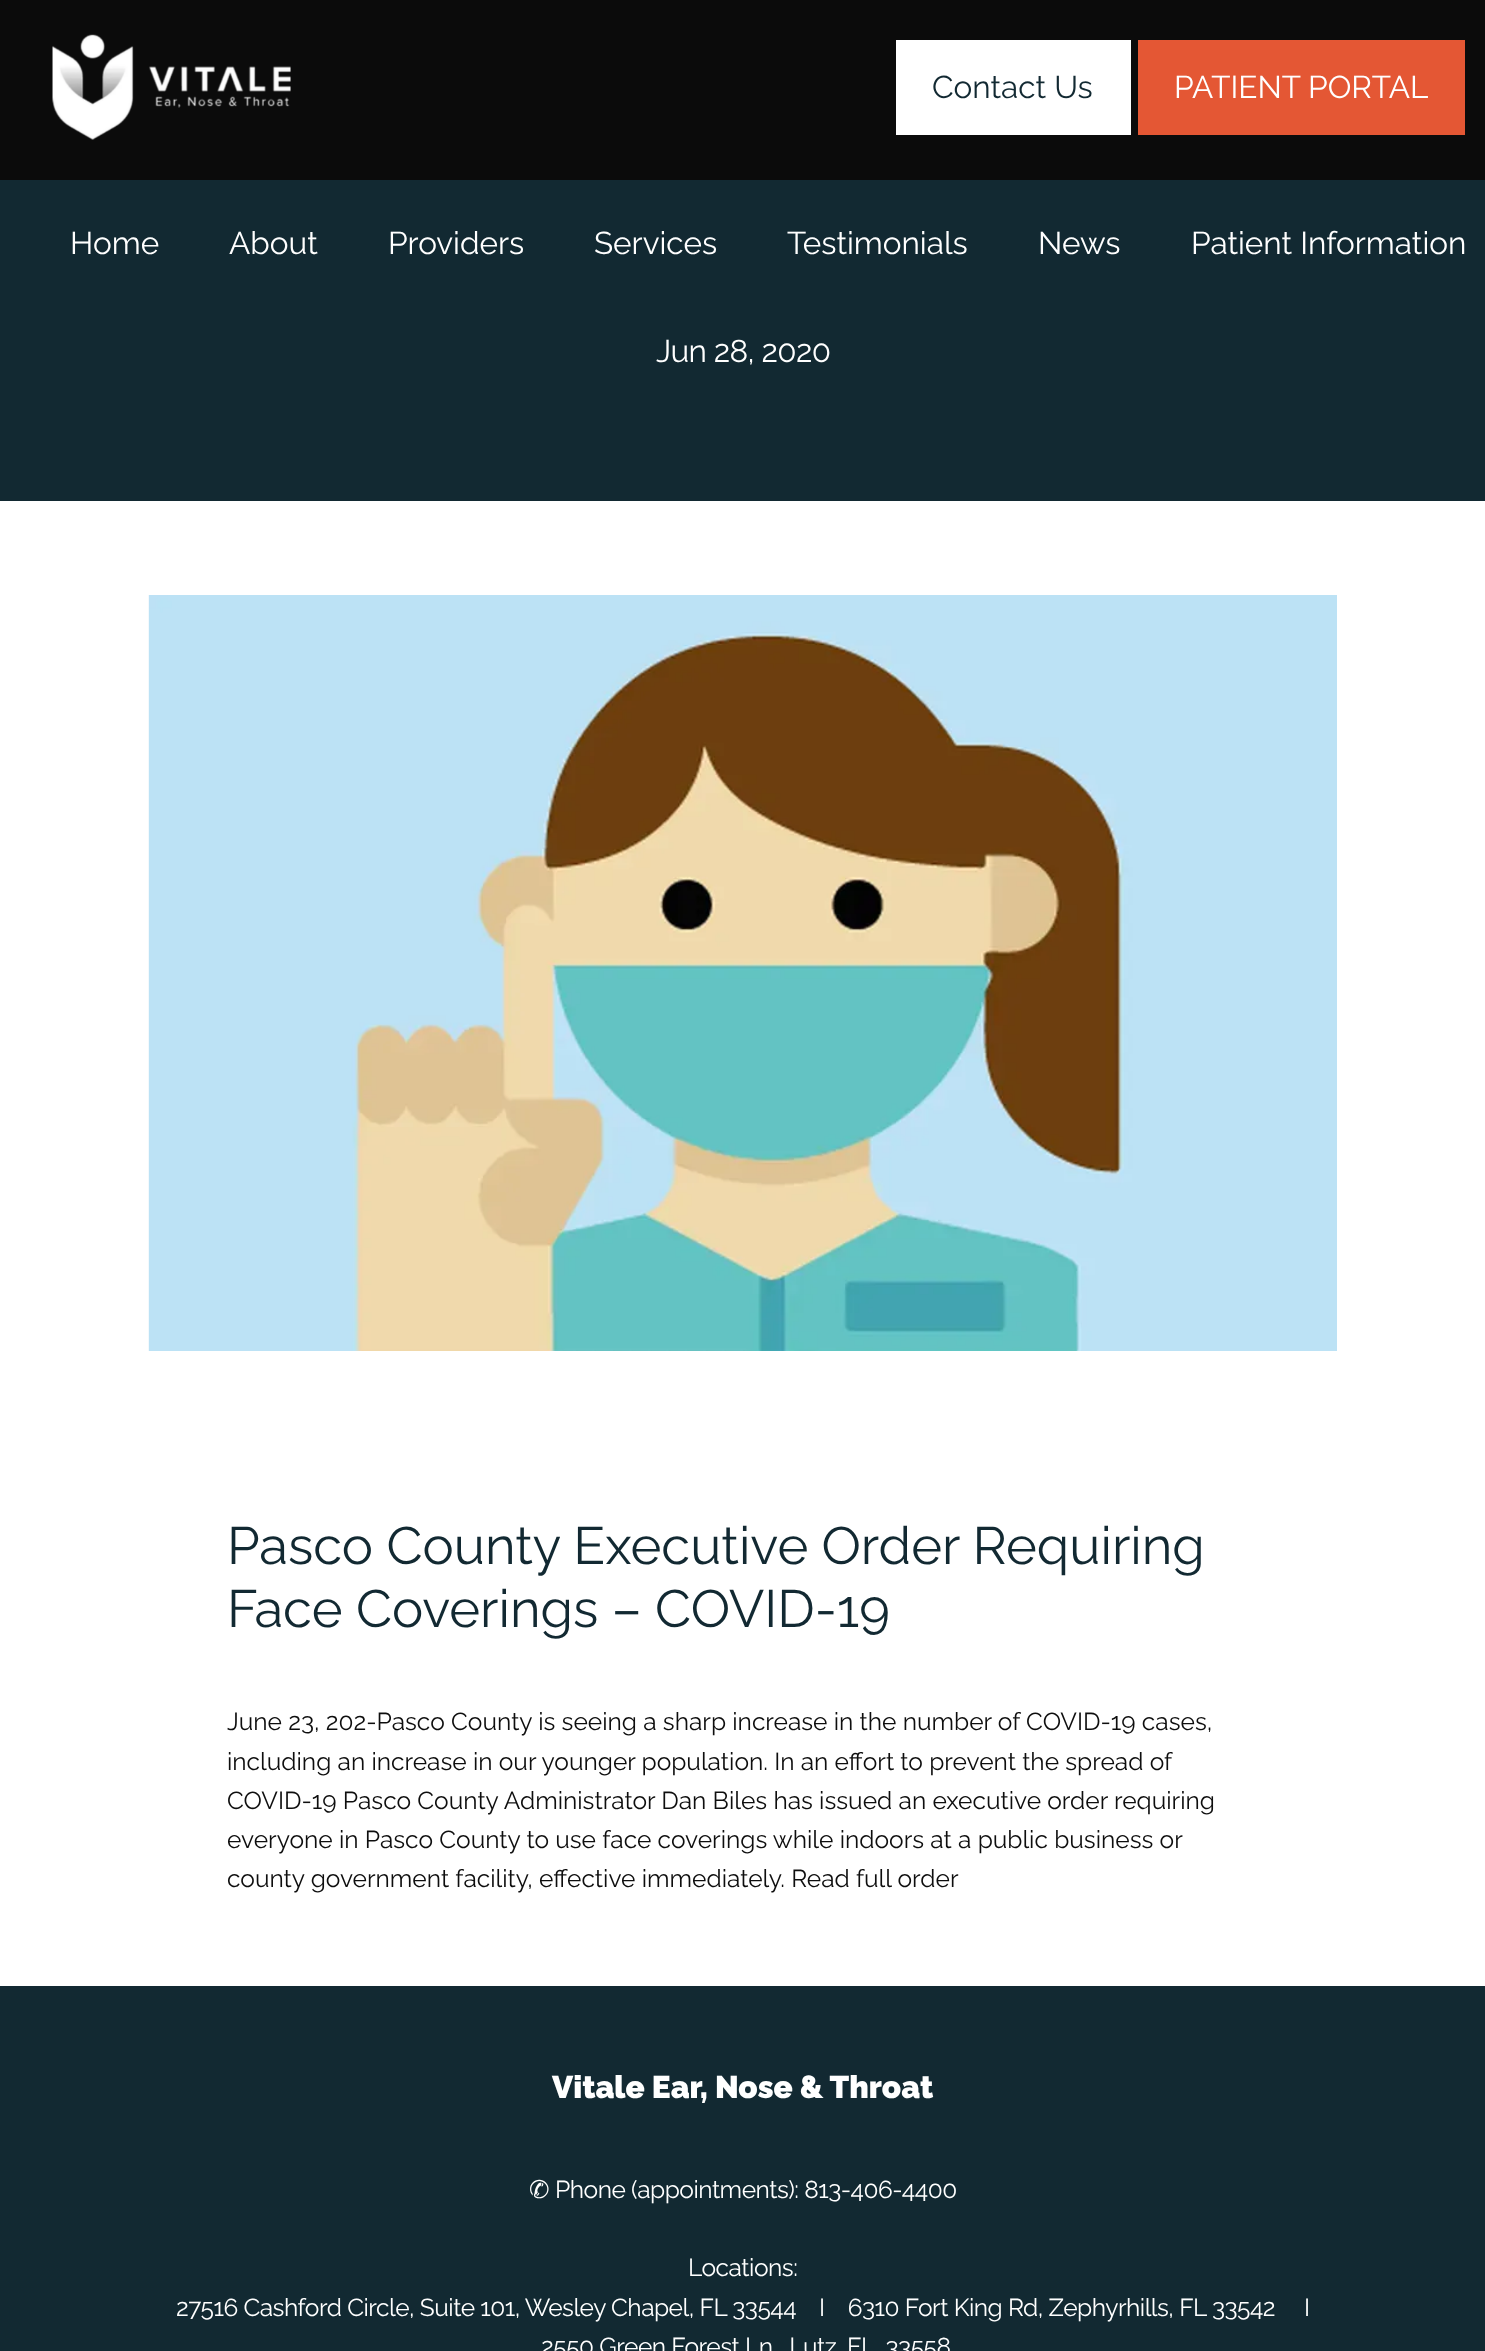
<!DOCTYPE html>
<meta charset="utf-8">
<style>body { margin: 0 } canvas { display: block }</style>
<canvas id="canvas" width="1485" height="2351"></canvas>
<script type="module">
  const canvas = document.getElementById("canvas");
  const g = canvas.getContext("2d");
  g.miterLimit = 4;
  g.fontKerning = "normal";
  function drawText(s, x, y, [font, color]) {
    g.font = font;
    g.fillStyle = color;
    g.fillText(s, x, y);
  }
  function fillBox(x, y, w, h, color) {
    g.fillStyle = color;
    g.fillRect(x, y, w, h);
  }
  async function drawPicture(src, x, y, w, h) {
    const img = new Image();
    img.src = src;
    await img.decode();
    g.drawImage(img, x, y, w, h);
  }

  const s1 = ["100 31.5px 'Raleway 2'", "#122932"];
  const s2 = ["100 31.5px 'Raleway 2'", "#FFFFFF"];
  const s3 = ["100 52.5px 'Raleway 2'", "#122932"];
  const s4 = ["100 24.5px 'Raleway 2'", "#0E0E0E"];
  const s5 = ["100 31.5px Raleway", "#FFFFFF"];
  const s6 = ["24.5px DejaVu Sans", "#FFFFFF"];
  const s7 = ["100 24.5px 'Raleway 2'", "#FFFFFF"];

  fillBox(0, 0, 1485, 2351, "#FFFFFF");
  fillBox(0, 0, 1485, 180, "#0B0B0B");
  await drawPicture("pic1.png", 52, 34, 239, 106);
  fillBox(896, 40, 235, 95, "#FFFFFF");
  drawText("Contact Us", 932, 98, s1);
  fillBox(1138, 40, 327, 95, "#E45734");
  drawText("PATIENT PORTAL", 1174, 98, s2);
  fillBox(0, 180, 1485, 321, "#122932");
  drawText("Home", 70, 254, s2);
  drawText("About", 229, 254, s2);
  drawText("Providers", 388, 254, s2);
  drawText("Services", 594, 254, s2);
  drawText("Testimonials", 787, 254, s2);
  drawText("News", 1038, 254, s2);
  drawText("Patient Information", 1191, 254, s2);
  g.letterSpacing = "-0.6px";
  drawText("Jun 28, 2020", 656, 362, s2);
  await drawPicture("pic2.png", 148, 595, 1189, 756);
  g.letterSpacing = "0px";
  drawText("Pasco County Executive Order Requiring", 227, 1564, s3);
  drawText("Face Coverings – COVID-19", 227, 1627, s3);
  drawText("June 23, 202-Pasco County is seeing a sharp increase in the number of COVID-19 cases,", 227, 1730, s4);
  drawText("including an increase in our younger population. In an effort to prevent the spread of", 227, 1770, s4);
  drawText("COVID-19 Pasco County Administrator Dan Biles has issued an executive order requiring", 227, 1809, s4);
  drawText("everyone in Pasco County to use face coverings while indoors at a public business or", 227, 1848, s4);
  drawText("county government facility, effective immediately. Read full order", 227, 1887, s4);
  fillBox(0, 1986, 1485, 365, "#122932");
  drawText("Vitale Ear, Nose & Throat", 552, 2098, s5);
  g.letterSpacing = "-0.49px";
  drawText("✆", 529, 2198, s6);
  drawText("Phone (appointments): 813-406-4400", 555, 2198, s7);
  drawText("Locations:", 688, 2276, s7);
  drawText("27516 Cashford Circle, Suite 101, Wesley Chapel, FL 33544    I    6310 Fort King Rd, Zephyrhills, FL 33542     I", 176, 2316, s7);
  drawText("2550 Green Forest Ln,  Lutz, FL, 33558", 541, 2355, s7);
</script>
